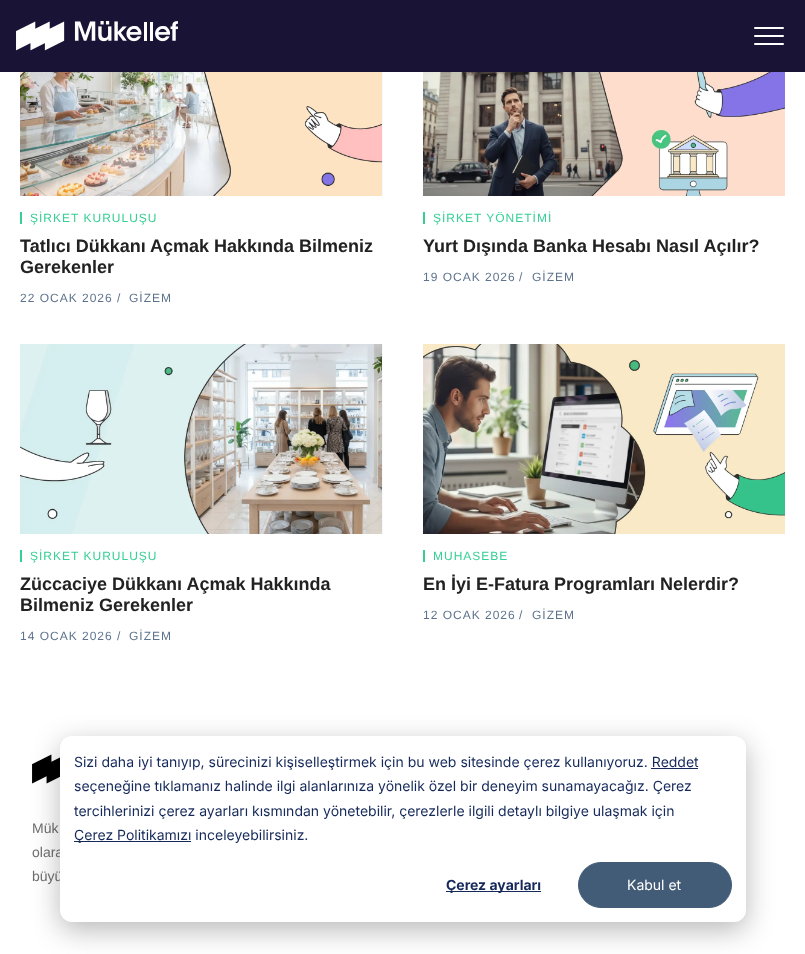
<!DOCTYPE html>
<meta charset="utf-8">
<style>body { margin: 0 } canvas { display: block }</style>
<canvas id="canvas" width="805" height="954"></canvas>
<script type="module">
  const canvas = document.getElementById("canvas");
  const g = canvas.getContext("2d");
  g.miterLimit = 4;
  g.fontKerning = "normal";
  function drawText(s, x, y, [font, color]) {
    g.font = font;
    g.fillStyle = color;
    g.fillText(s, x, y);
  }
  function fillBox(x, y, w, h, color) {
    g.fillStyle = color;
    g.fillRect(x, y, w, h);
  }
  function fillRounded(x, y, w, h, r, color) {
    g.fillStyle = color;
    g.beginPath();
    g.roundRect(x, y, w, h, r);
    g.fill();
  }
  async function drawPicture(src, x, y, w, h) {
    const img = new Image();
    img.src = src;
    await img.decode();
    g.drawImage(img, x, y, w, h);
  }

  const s1 = ["12px Liberation Sans", "#36CF94"];
  const s2 = ["bold 18px Liberation Sans", "#222222"];
  const s3 = ["12px Liberation Sans", "#5D738D"];
  const s4 = ["14px Liberation Sans", "#6F6F6F"];
  const s5 = ["14px Inter", "#15295A"];
  const s6 = ["bold 14px Inter", "#15295A"];
  const s7 = ["14px Inter", "#FFFFFF"];

  fillBox(0, 0, 805, 954, "#FFFFFF");
  fillBox(0, 0, 805, 72, "#191335");
  await drawPicture("pic1.png", 16, 21, 162, 30);
  fillRounded(754, 35, 30, 2, 1, "#FFFFFF");
  fillRounded(754, 27, 30, 2, 1, "#FFFFFF");
  fillRounded(754, 43, 30, 2, 1, "#FFFFFF");
  fillBox(382, 72, 1, 124, "#F6F9FC");
  await drawPicture("pic2.png", 20, 72, 362, 124);
  fillBox(20, 212, 2, 12, "#36CF94");
  g.letterSpacing = "1px";
  drawText("ŞİRKET KURULUŞU", 30, 222, s1);
  g.letterSpacing = "0px";
  drawText("Tatlıcı Dükkanı Açmak Hakkında Bilmeniz", 20, 252, s2);
  drawText("Gerekenler", 20, 273, s2);
  g.letterSpacing = "1px";
  drawText("22 OCAK 2026", 20, 302, s3);
  drawText("/", 117, 302, s3);
  drawText("GİZEM", 129, 302, s3);
  await drawPicture("pic3.png", 423, 72, 362, 124);
  fillBox(423, 212, 2, 12, "#36CF94");
  drawText("ŞİRKET YÖNETİMİ", 433, 222, s1);
  g.letterSpacing = "0px";
  drawText("Yurt Dışında Banka Hesabı Nasıl Açılır?", 423, 252, s2);
  g.letterSpacing = "1px";
  drawText("19 OCAK 2026", 423, 281, s3);
  drawText("/", 519, 281, s3);
  drawText("GİZEM", 532, 281, s3);
  fillBox(382, 344, 1, 190, "#F6F9FC");
  await drawPicture("pic4.png", 20, 344, 362, 190);
  fillBox(20, 550, 2, 12, "#36CF94");
  drawText("ŞİRKET KURULUŞU", 30, 560, s1);
  g.letterSpacing = "0px";
  drawText("Züccaciye Dükkanı Açmak Hakkında", 20, 590, s2);
  drawText("Bilmeniz Gerekenler", 20, 611, s2);
  g.letterSpacing = "1px";
  drawText("14 OCAK 2026", 20, 640, s3);
  drawText("/", 117, 640, s3);
  drawText("GİZEM", 129, 640, s3);
  await drawPicture("pic5.png", 423, 344, 362, 190);
  fillBox(423, 550, 2, 12, "#36CF94");
  drawText("MUHASEBE", 433, 560, s1);
  g.letterSpacing = "0px";
  drawText("En İyi E-Fatura Programları Nelerdir?", 423, 590, s2);
  g.letterSpacing = "1px";
  drawText("12 OCAK 2026", 423, 619, s3);
  drawText("/", 519, 619, s3);
  drawText("GİZEM", 532, 619, s3);
  await drawPicture("pic6.png", 32, 754, 28, 30);
  g.letterSpacing = "0px";
  drawText("Mük", 32, 833, s4);
  drawText("olara", 32, 857, s4);
  drawText("büyü", 32, 881, s4);
  g.fillStyle = "rgba(0, 0, 0, 0.28)";
  g.filter = "blur(14px)";
  g.beginPath();
  g.roundRect(60, 744, 686, 186, 12);
  g.fill();
  g.filter = "none";
  fillRounded(60, 736, 686, 186, 12, "#FFFFFF");
  drawText("Sizi daha iyi tanıyıp, sürecinizi kişiselleştirmek için bu web sitesinde çerez kullanıyoruz. Reddet", 74, 767, s5);
  fillBox(651, 768, 47, 1, "#15295A");
  drawText("seçeneğine tıklamanız halinde ilgi alanlarınıza yönelik özel bir deneyim sunamayacağız. Çerez", 74, 791, s5);
  drawText("tercihlerinizi çerez ayarları kısmından yönetebilir, çerezlerle ilgili detaylı bilgiye ulaşmak için", 74, 816, s5);
  fillBox(74, 841, 117, 1, "#15295A");
  drawText("Çerez Politikamızı inceleyebilirsiniz.", 74, 840, s5);
  fillBox(446, 891, 95, 1, "#15295A");
  drawText("Çerez ayarları", 446, 890, s6);
  g.fillStyle = "#425B76";
  g.beginPath();
  g.roundRect(578.5, 862.5, 153, 45, 22.5);
  g.fill();
  g.strokeStyle = "#425B76";
  g.stroke();
  drawText("Kabul et", 627, 890, s7);
</script>
